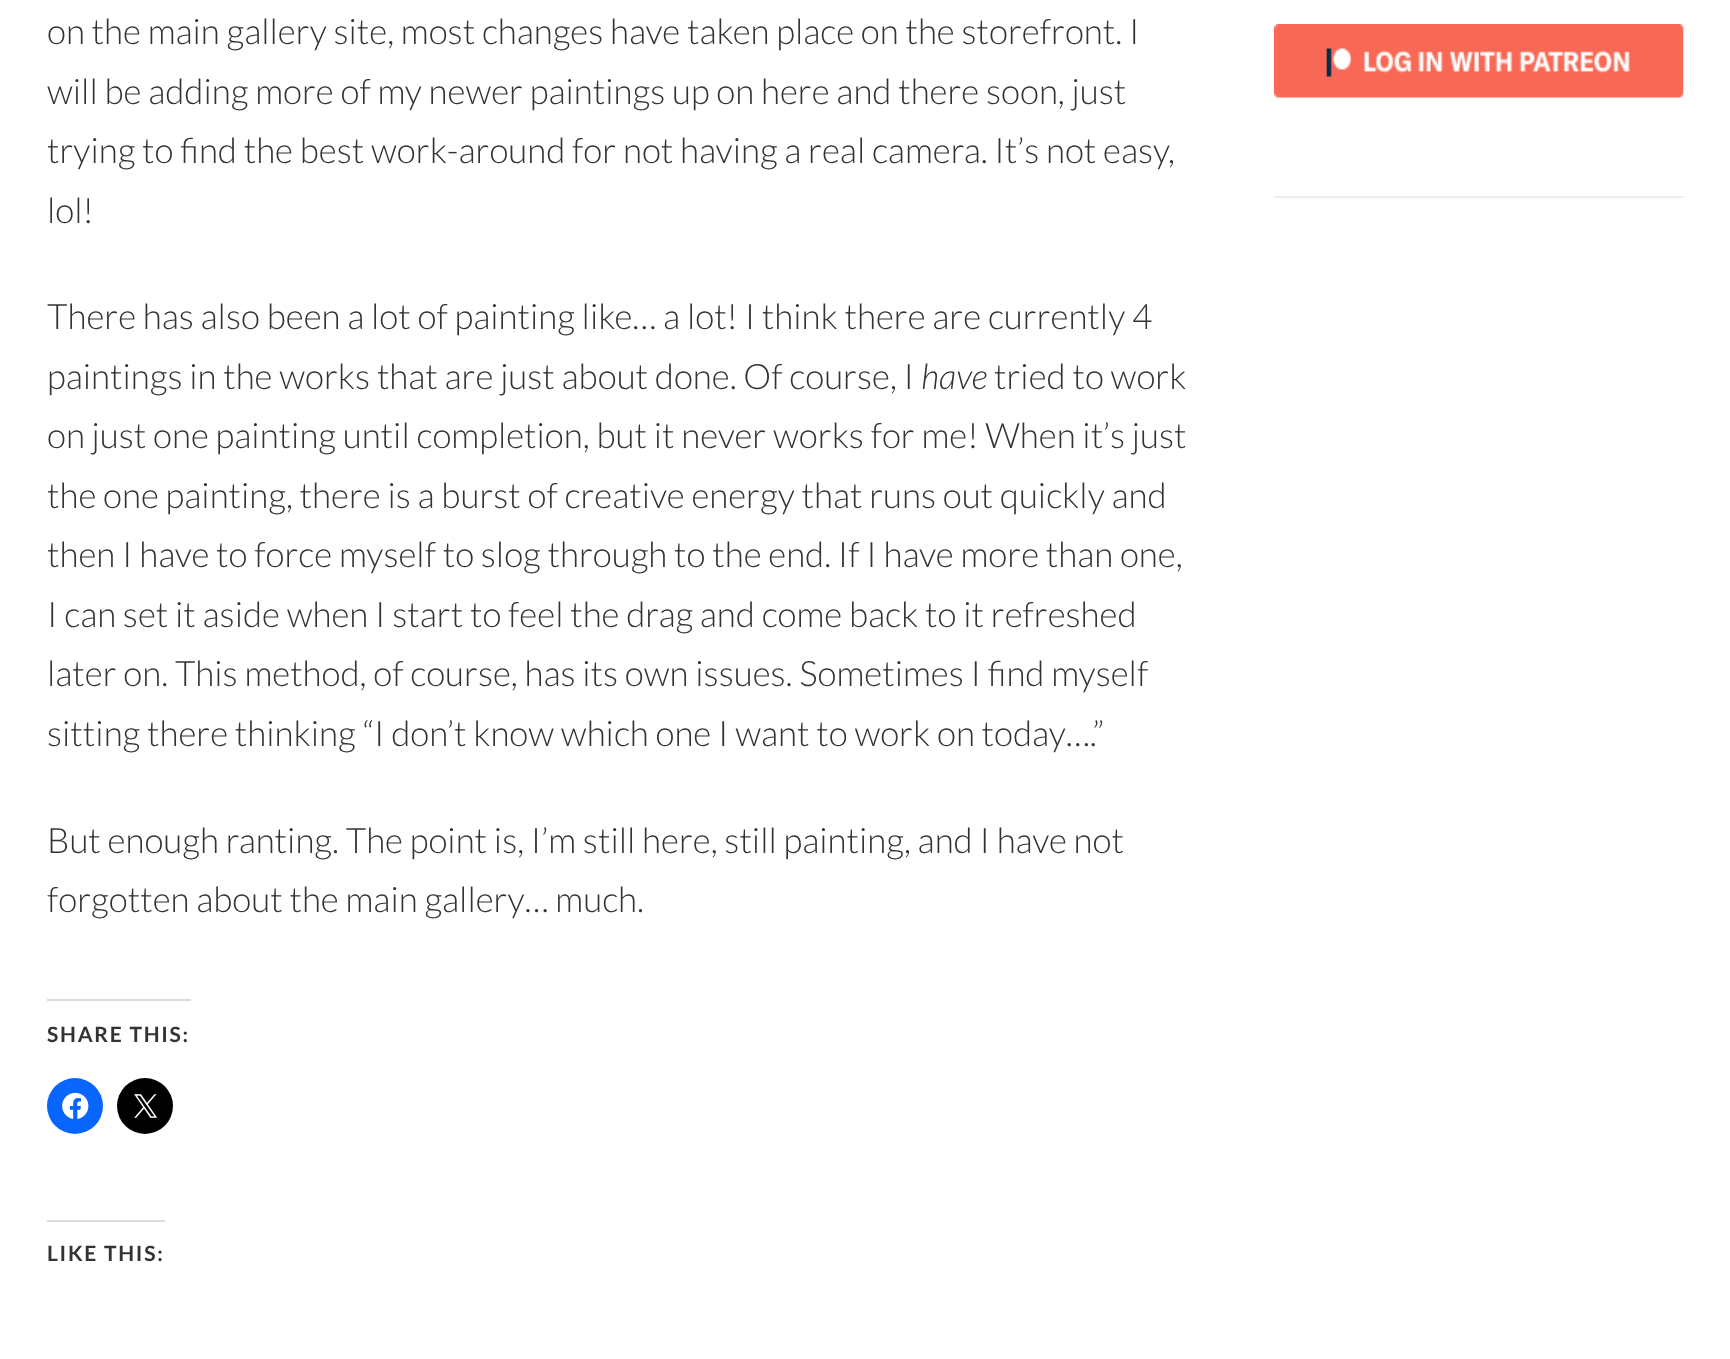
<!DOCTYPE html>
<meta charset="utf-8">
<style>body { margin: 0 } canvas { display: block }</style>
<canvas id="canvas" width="1730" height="1359"></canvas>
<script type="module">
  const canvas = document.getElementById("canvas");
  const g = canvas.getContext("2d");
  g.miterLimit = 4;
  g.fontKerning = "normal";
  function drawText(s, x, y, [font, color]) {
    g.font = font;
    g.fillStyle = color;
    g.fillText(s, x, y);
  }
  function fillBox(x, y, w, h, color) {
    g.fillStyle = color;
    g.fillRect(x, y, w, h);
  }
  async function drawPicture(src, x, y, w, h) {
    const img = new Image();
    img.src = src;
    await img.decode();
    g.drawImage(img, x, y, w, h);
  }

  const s1 = ["300 35px Lato", "#333333"];
  const s2 = ["italic 300 35px Lato", "#333333"];
  const s3 = ["bold 21px Lato", "#333333"];

  fillBox(0, 0, 1730, 1359, "#FFFFFF");
  drawText("on the main gallery site, most changes have taken place on the storefront. I", 47, 44, s1);
  drawText("will be adding more of my newer paintings up on here and there soon, just", 47, 104, s1);
  drawText("trying to find the best work-around for not having a real camera. It’s not easy,", 47, 163, s1);
  drawText("lol!", 47, 223, s1);
  drawText("There has also been a lot of painting like… a lot! I think there are currently 4", 47, 329, s1);
  drawText("paintings in the works that are just about done. Of course, I", 47, 389, s1);
  drawText("have", 921, 389, s2);
  drawText("tried to work", 994, 389, s1);
  drawText("on just one painting until completion, but it never works for me! When it’s just", 47, 448, s1);
  drawText("the one painting, there is a burst of creative energy that runs out quickly and", 47, 508, s1);
  drawText("then I have to force myself to slog through to the end. If I have more than one,", 47, 567, s1);
  drawText("I can set it aside when I start to feel the drag and come back to it refreshed", 47, 627, s1);
  drawText("later on. This method, of course, has its own issues. Sometimes I find myself", 47, 686, s1);
  drawText("sitting there thinking “I don’t know which one I want to work on today….”", 47, 746, s1);
  drawText("But enough ranting. The point is, I’m still here, still painting, and I have not", 47, 853, s1);
  drawText("forgotten about the main gallery… much.", 47, 912, s1);
  fillBox(47, 999, 144, 2, "#DCDCDE");
  g.letterSpacing = "1.75px";
  drawText("SHARE THIS:", 47, 1042, s3);
  g.fillStyle = "#0866FF";
  g.beginPath();
  g.arc(75, 1106, 28, 0, Math.PI * 2);
  g.fill();
  await drawPicture("pic1.png", 62, 1092, 27, 27);
  g.fillStyle = "#000000";
  g.beginPath();
  g.arc(145, 1106, 28, 0, Math.PI * 2);
  g.fill();
  await drawPicture("pic2.png", 134, 1094, 24, 24);
  fillBox(47, 1220, 118, 2, "#DCDCDE");
  drawText("LIKE THIS:", 47, 1261, s3);
  fillBox(1274, 196, 410, 2, "#EEEEEE");
  await drawPicture("pic3.png", 1274, 24, 410, 74);
</script>
